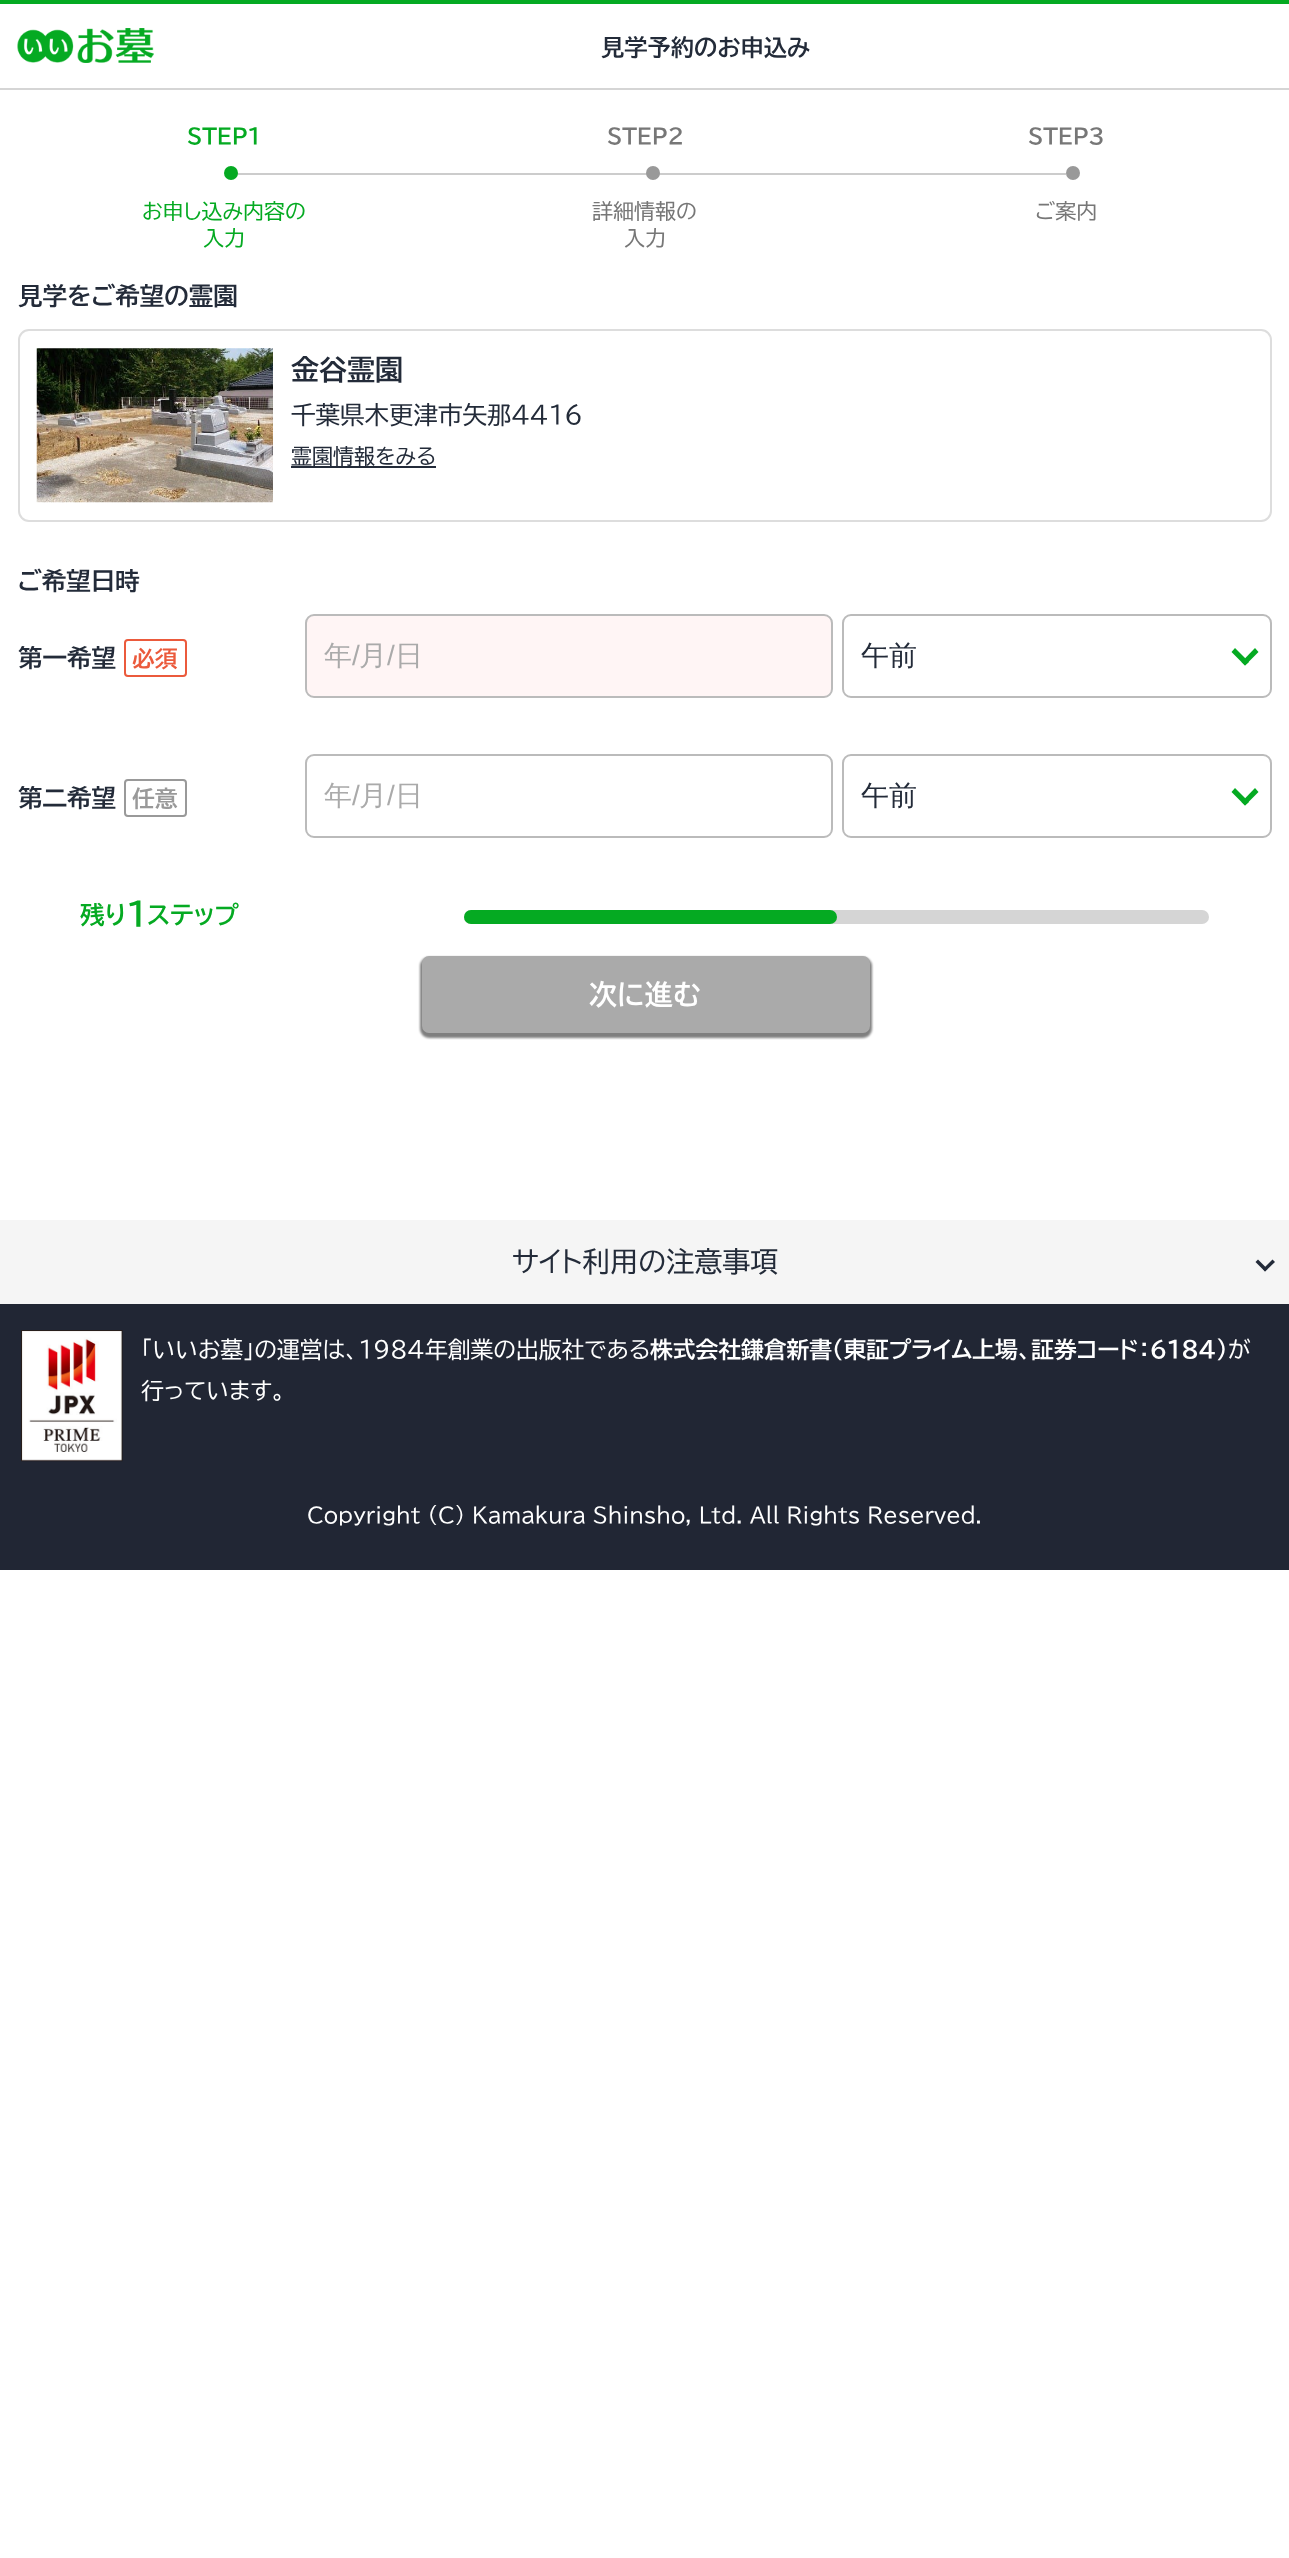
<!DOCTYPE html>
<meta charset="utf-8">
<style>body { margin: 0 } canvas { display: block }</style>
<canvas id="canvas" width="1289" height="2558"></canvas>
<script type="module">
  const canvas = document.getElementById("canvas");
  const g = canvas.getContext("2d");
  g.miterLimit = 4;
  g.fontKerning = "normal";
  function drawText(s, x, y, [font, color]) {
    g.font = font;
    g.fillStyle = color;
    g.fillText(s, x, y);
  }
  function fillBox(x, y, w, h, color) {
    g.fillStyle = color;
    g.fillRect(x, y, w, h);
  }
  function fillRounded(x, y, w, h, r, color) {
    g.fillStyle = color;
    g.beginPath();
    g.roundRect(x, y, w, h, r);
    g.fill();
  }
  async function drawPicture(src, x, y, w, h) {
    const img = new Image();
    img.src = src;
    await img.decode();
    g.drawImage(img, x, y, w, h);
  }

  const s1 = ["bold 23.25px BIZ UDPGothic", "#232B39"];
  const s2 = ["bold 21px BIZ UDPGothic", "#05AA22"];
  const s3 = ["21px BIZ UDPGothic", "#05AA22"];
  const s4 = ["bold 21px BIZ UDPGothic", "#777777"];
  const s5 = ["21px BIZ UDPGothic", "#777777"];
  const s6 = ["bold 24.5px BIZ UDPGothic", "#232B39"];
  const s7 = ["bold 28px BIZ UDPGothic", "#232B39"];
  const s8 = ["24.5px BIZ UDPGothic", "#232B39"];
  const s9 = ["21px BIZ UDPGothic", "#232B39"];
  const s10 = ["bold 22.75px BIZ UDPGothic", "#EB5A3C"];
  const s11 = ["500 28px WenQuanYi Zen Hei", "#AAAAAA"];
  const s12 = ["28px Liberation Sans", "#AAAAAA"];
  const s13 = ["500 28px WenQuanYi Zen Hei", "#232B39"];
  const s14 = ["bold 22.75px BIZ UDPGothic", "#999999"];
  const s15 = ["bold 24.5px BIZ UDPGothic", "#05AA22"];
  const s16 = ["bold 32px BIZ UDPGothic", "#05AA22"];
  const s17 = ["bold 28px BIZ UDPGothic", "#FFFFFF"];
  const s18 = ["28px BIZ UDPGothic", "#232B39"];
  const s19 = ["22.75px BIZ UDPGothic", "#FFFFFF"];
  const s20 = ["bold 22.75px BIZ UDPGothic", "#FFFFFF"];
  const s21 = ["21px BIZ UDPGothic", "#FFFFFF"];

  fillBox(0, 0, 1289, 2558, "#FFFFFF");
  fillBox(0, 0, 1289, 4, "#05AA22");
  fillBox(0, 88, 1289, 2, "#D5D5D5");
  await drawPicture("pic1.png", 17, 28, 137, 35);
  drawText("見学予約のお申込み", 601, 56, s1);
  drawText("STEP1", 187, 144, s2);
  fillBox(237, 173, 829, 2, "#CCCCCC");
  g.fillStyle = "#05AA22";
  g.beginPath();
  g.arc(231, 173, 7, 0, Math.PI * 2);
  g.fill();
  drawText("お申し込み内容の", 142, 219, s3);
  drawText("入力", 203, 246, s3);
  drawText("STEP2", 607, 144, s4);
  g.fillStyle = "#999999";
  g.beginPath();
  g.arc(653, 173, 7, 0, Math.PI * 2);
  g.fill();
  drawText("詳細情報の", 592, 219, s5);
  drawText("入力", 624, 246, s5);
  drawText("STEP3", 1028, 144, s4);
  g.fillStyle = "#999999";
  g.beginPath();
  g.arc(1073, 173, 7, 0, Math.PI * 2);
  g.fill();
  drawText("ご案内", 1035, 219, s5);
  drawText("見学をご希望の霊園", 18, 305, s6);
  g.beginPath();
  g.roundRect(19, 330, 1252, 191, 10);
  g.strokeStyle = "#DDDDDD";
  g.lineWidth = 2;
  g.stroke();
  await drawPicture("pic2.png", 36, 348, 237, 155);
  drawText("金谷霊園", 291, 380, s7);
  drawText("千葉県木更津市矢那4416", 291, 424, s8);
  drawText("霊園情報をみる", 291, 464, s9);
  fillBox(291, 466, 145, 2, "#232B39");
  drawText("ご希望日時", 18, 590, s6);
  drawText("第一希望", 18, 667, s6);
  g.beginPath();
  g.roundRect(125, 640, 61, 36, 3);
  g.strokeStyle = "#EB5A3C";
  g.stroke();
  drawText("必須", 132, 667, s10);
  g.fillStyle = "#FFF5F5";
  g.beginPath();
  g.roundRect(306, 615, 526, 82, 8);
  g.fill();
  g.strokeStyle = "#BBBBBB";
  g.stroke();
  drawText("年", 324, 665, s11);
  drawText("/", 352, 665, s12);
  drawText("月", 359, 665, s11);
  drawText("/", 387, 665, s12);
  drawText("日", 395, 665, s11);
  g.beginPath();
  g.roundRect(843, 615, 428, 82, 8);
  g.stroke();
  drawText("午前", 861, 665, s13);
  g.fillStyle = "#05AA22";
  g.beginPath();
  g.moveTo(1258.5, 652);
  g.lineTo(1245, 665.5);
  g.lineTo(1241.5, 662);
  g.lineTo(1255, 648);
  g.closePath();
  g.fill();
  g.beginPath();
  g.moveTo(1249, 662);
  g.lineTo(1245, 665.5);
  g.lineTo(1231.5, 652);
  g.lineTo(1235, 648);
  g.closePath();
  g.fill();
  drawText("第二希望", 18, 807, s6);
  g.beginPath();
  g.roundRect(125, 780, 61, 36, 3);
  g.strokeStyle = "#999999";
  g.stroke();
  drawText("任意", 132, 807, s14);
  g.beginPath();
  g.roundRect(306, 755, 526, 82, 8);
  g.strokeStyle = "#BBBBBB";
  g.stroke();
  drawText("年", 324, 805, s11);
  drawText("/", 352, 805, s12);
  drawText("月", 359, 805, s11);
  drawText("/", 387, 805, s12);
  drawText("日", 395, 805, s11);
  g.beginPath();
  g.roundRect(843, 755, 428, 82, 8);
  g.stroke();
  drawText("午前", 861, 805, s13);
  g.fillStyle = "#05AA22";
  g.beginPath();
  g.moveTo(1258.5, 792);
  g.lineTo(1245, 805.5);
  g.lineTo(1241.5, 802);
  g.lineTo(1255, 788);
  g.closePath();
  g.fill();
  g.beginPath();
  g.moveTo(1249, 802);
  g.lineTo(1245, 805.5);
  g.lineTo(1231.5, 792);
  g.lineTo(1235, 788);
  g.closePath();
  g.fill();
  drawText("残り", 80, 924, s15);
  drawText("1", 127, 926, s16);
  drawText("ステップ", 147, 924, s15);
  fillRounded(464, 910, 745, 14, 7, "#D5D5D5");
  fillRounded(464, 910, 373, 14, 7, "#05AA22");
  g.fillStyle = "rgba(0, 0, 0, 0.5)";
  g.filter = "blur(1px)";
  g.beginPath();
  g.roundRect(420, 957, 452, 81, 9);
  g.fill();
  g.filter = "none";
  fillRounded(422, 956, 448, 77, 7, "#AAAAAA");
  drawText("次に進む", 589, 1005, s17);
  fillBox(0, 1220, 1289, 84, "#F5F5F5");
  drawText("サイト利用の注意事項", 512, 1272, s18);
  g.beginPath();
  g.moveTo(1275, 1262);
  g.lineTo(1265, 1271.5);
  g.lineTo(1263, 1269);
  g.lineTo(1272.5, 1259.5);
  g.closePath();
  g.fill();
  g.beginPath();
  g.moveTo(1267.5, 1269);
  g.lineTo(1265, 1271.5);
  g.lineTo(1255.5, 1262);
  g.lineTo(1258, 1259.5);
  g.closePath();
  g.fill();
  fillBox(0, 1304, 1289, 266, "#212634");
  await drawPicture("pic3.png", 21, 1330, 102, 132);
  drawText("「いいお墓」の運営は、1984年創業の出版社である", 141, 1358, s19);
  drawText("株式会社鎌倉新書（東証プライム上場、証券コード：6184）", 650, 1358, s20);
  drawText("が", 1228, 1358, s19);
  drawText("行っています。", 141, 1399, s19);
  drawText("Copyright (C) Kamakura Shinsho, Ltd. All Rights Reserved.", 307, 1523, s21);
</script>
